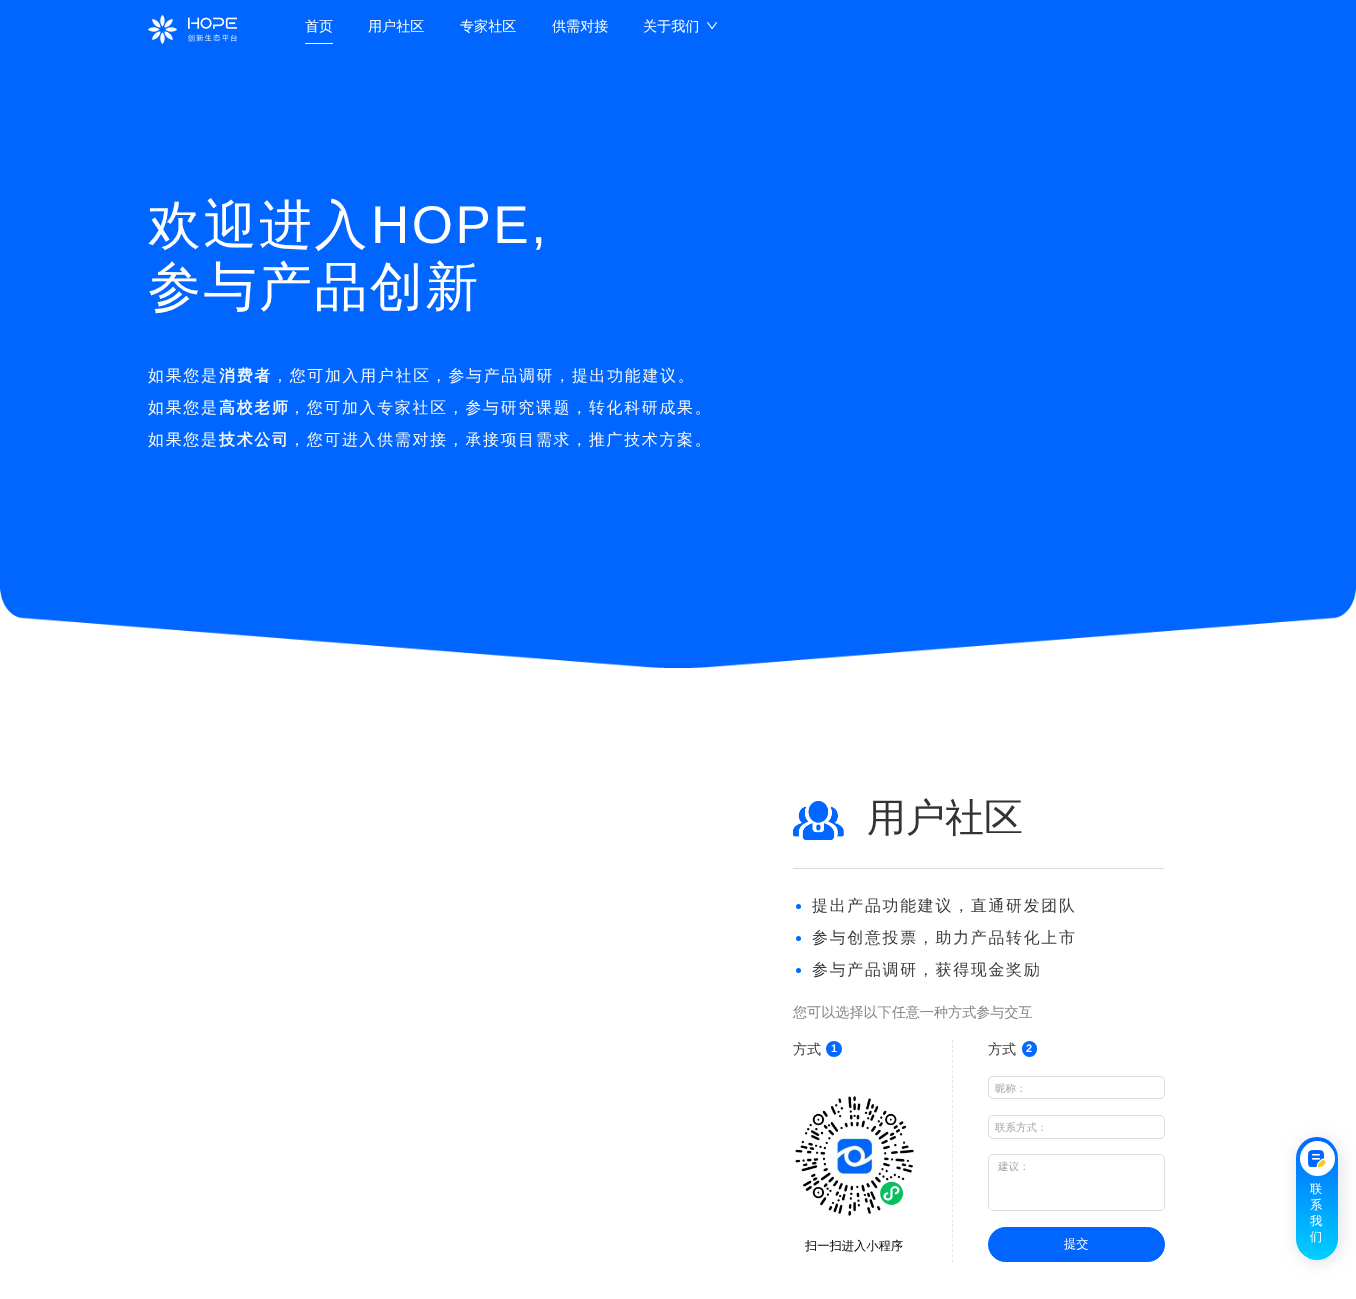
<!DOCTYPE html>
<meta charset="utf-8">
<style>body { margin: 0 } canvas { display: block }</style>
<canvas id="canvas" width="1356" height="1299"></canvas>
<script type="module">
  const canvas = document.getElementById("canvas");
  const g = canvas.getContext("2d");
  g.miterLimit = 4;
  g.fontKerning = "normal";
  function drawText(s, x, y, [font, color]) {
    g.font = font;
    g.fillStyle = color;
    g.fillText(s, x, y);
  }
  function fillBox(x, y, w, h, color) {
    g.fillStyle = color;
    g.fillRect(x, y, w, h);
  }
  function fillRounded(x, y, w, h, r, color) {
    g.fillStyle = color;
    g.beginPath();
    g.roundRect(x, y, w, h, r);
    g.fill();
  }
  async function drawPicture(src, x, y, w, h) {
    const img = new Image();
    img.src = src;
    await img.decode();
    g.drawImage(img, x, y, w, h);
  }
  let gradient;

  const s1 = ["500 14.1px WenQuanYi Zen Hei", "#FFFFFF"];
  const s2 = ["500 53px WenQuanYi Zen Hei", "#FFFFFF"];
  const s3 = ["53px Liberation Sans", "#FFFFFF"];
  const s4 = ["500 15.9px WenQuanYi Zen Hei", "#F4F8FD"];
  const s5 = ["bold 15.9px WenQuanYi Zen Hei", "#F4F8FD"];
  const s6 = ["500 39px WenQuanYi Zen Hei", "#333333"];
  const s7 = ["500 15.9px WenQuanYi Zen Hei", "#3B3B39"];
  const s8 = ["500 14.1px WenQuanYi Zen Hei", "#868686"];
  const s9 = ["500 14.1px WenQuanYi Zen Hei", "#3B3B39"];
  const s10 = ["bold 11px Liberation Sans", "#FFFFFF"];
  const s11 = ["500 12.25px WenQuanYi Zen Hei", "#000000"];
  const s12 = ["500 10.5px WenQuanYi Zen Hei", "#A4A5A8"];
  const s13 = ["500 12.25px WenQuanYi Zen Hei", "#FFFFFF"];

  fillBox(0, 0, 1356, 1299, "#FFFFFF");
  await drawPicture("pic1.png", 0, 0, 1356, 668);
  await drawPicture("pic2.png", 148, 15, 89, 29);
  drawText("首页", 305, 31, s1);
  fillBox(305, 43, 28, 1, "#FFFFFF");
  drawText("用户社区", 368, 31, s1);
  drawText("专家社区", 460, 31, s1);
  drawText("供需对接", 552, 31, s1);
  drawText("关于我们", 643, 31, s1);
  await drawPicture("pic3.png", 706, 22, 12, 8);
  g.letterSpacing = "2.5px";
  drawText("欢迎进入", 148, 243, s2);
  drawText("HOPE,", 371, 243, s3);
  drawText("参与产品创新", 148, 305, s2);
  g.letterSpacing = "1.75px";
  drawText("如果您是", 148, 381, s4);
  drawText("消费者", 219, 381, s5);
  drawText("，您可加入用户社区，参与产品调研，提出功能建议。", 272, 381, s4);
  drawText("如果您是", 148, 413, s4);
  drawText("高校老师", 219, 413, s5);
  drawText("，您可加入专家社区，参与研究课题，转化科研成果。", 289, 413, s4);
  drawText("如果您是", 148, 445, s4);
  drawText("技术公司", 219, 445, s5);
  drawText("，您可进入供需对接，承接项目需求，推广技术方案。", 289, 445, s4);
  fillBox(793, 868, 371, 1, "#DADADA");
  await drawPicture("pic4.png", 793, 801, 51, 39);
  g.letterSpacing = "0px";
  drawText("用户社区", 867, 831, s6);
  g.fillStyle = "#0468FF";
  g.beginPath();
  g.arc(798.5, 906.5, 2.5, 0, Math.PI * 2);
  g.fill();
  g.letterSpacing = "1.75px";
  drawText("提出产品功能建议，直通研发团队", 812, 911, s7);
  g.fillStyle = "#0468FF";
  g.beginPath();
  g.arc(798.5, 938.5, 2.5, 0, Math.PI * 2);
  g.fill();
  drawText("参与创意投票，助力产品转化上市", 812, 943, s7);
  g.fillStyle = "#0468FF";
  g.beginPath();
  g.arc(798.5, 970.5, 2.5, 0, Math.PI * 2);
  g.fill();
  drawText("参与产品调研，获得现金奖励", 812, 975, s7);
  g.letterSpacing = "0px";
  drawText("您可以选择以下任意一种方式参与交互", 793, 1017, s8);
  drawText("方式", 793, 1054, s9);
  g.fillStyle = "#0468FF";
  g.beginPath();
  g.arc(834, 1049, 8, 0, Math.PI * 2);
  g.fill();
  drawText("1", 831, 1052, s10);
  await drawPicture("pic5.png", 795, 1096, 119, 120);
  drawText("扫一扫进入小程序", 805, 1250, s11);
  g.beginPath();
  g.moveTo(952.5, 1040);
  g.lineTo(952.5, 1262);
  g.strokeStyle = "#E6E6E6";
  g.setLineDash([3, 1.98]);
  g.stroke();
  drawText("方式", 988, 1054, s9);
  fillRounded(1022, 1041, 15, 16, 7.5, "#0468FF");
  drawText("2", 1026, 1052, s10);
  g.beginPath();
  g.roundRect(988.5, 1076.5, 176, 22, 4.5);
  g.strokeStyle = "#DADADA";
  g.setLineDash([]);
  g.stroke();
  drawText("昵称：", 995, 1092, s12);
  g.beginPath();
  g.roundRect(988.5, 1115.5, 176, 23, 4.5);
  g.stroke();
  drawText("联系方式：", 995, 1131, s12);
  g.beginPath();
  g.roundRect(988.45, 1154.45, 176.1, 56.1, 4.55);
  g.lineWidth = 0.9;
  g.stroke();
  drawText("建议：", 998, 1170, s12);
  g.fillStyle = "#0066FF";
  g.beginPath();
  g.roundRect(988.5, 1227.5, 176, 34, 17);
  g.fill();
  g.strokeStyle = "#0066FF";
  g.lineWidth = 1;
  g.stroke();
  drawText("提交", 1064, 1248, s13);
  g.fillStyle = "rgba(188, 194, 204, 0.5)";
  g.filter = "blur(9px)";
  g.beginPath();
  g.roundRect(1298, 1139, 42, 123, 21);
  g.fill();
  g.filter = "none";
  gradient = g.createLinearGradient(1317, 1137, 1317, 1260);
  gradient.addColorStop(0, "#0066FF");
  gradient.addColorStop(1, "#00D1FF");
  g.fillStyle = gradient;
  g.beginPath();
  g.roundRect(1296, 1137, 42, 123, 21);
  g.fill();
  g.fillStyle = "#FFFFFF";
  g.beginPath();
  g.arc(1317.5, 1158.5, 17.5, 0, Math.PI * 2);
  g.fill();
  await drawPicture("pic6.png", 1308, 1150, 18, 17);
  drawText("联", 1310, 1193, s13);
  drawText("系", 1310, 1209, s13);
  drawText("我", 1310, 1225, s13);
  drawText("们", 1310, 1241, s13);
</script>
